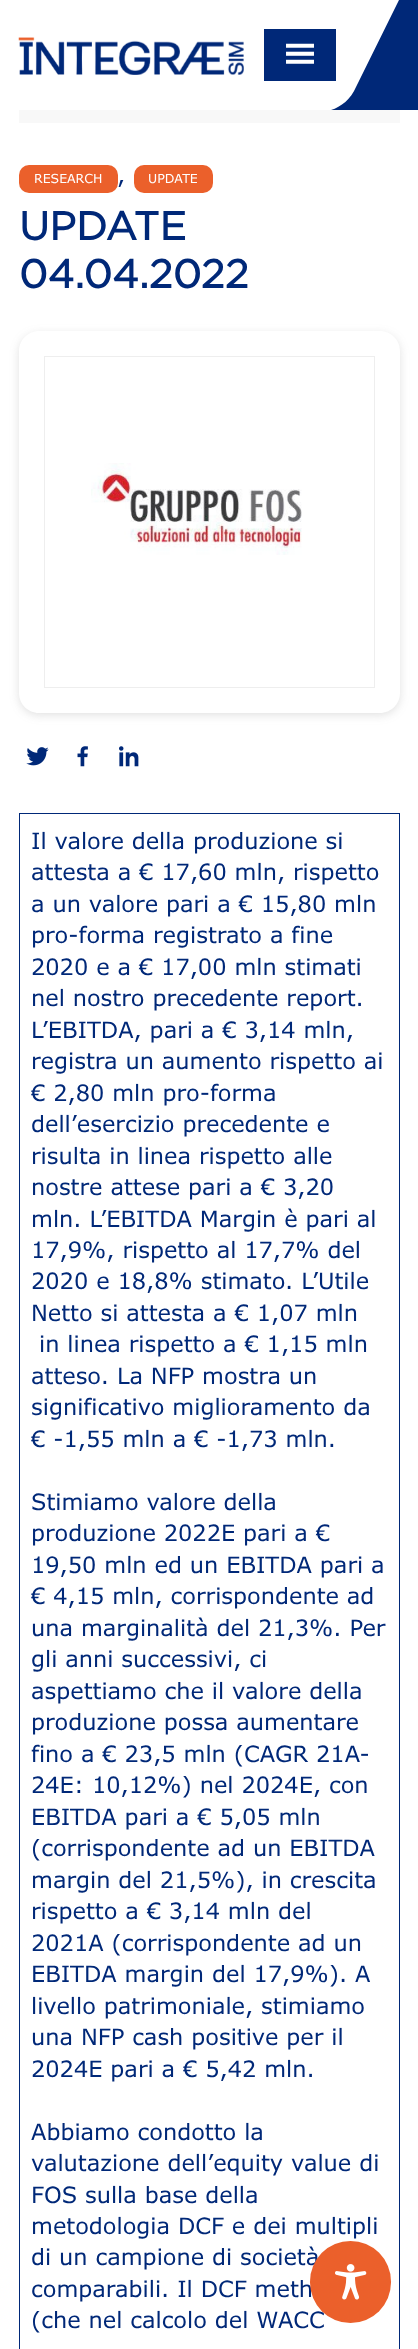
<!DOCTYPE html>
<meta charset="utf-8">
<style>body { margin: 0 } canvas { display: block }</style>
<canvas id="canvas" width="418" height="2349"></canvas>
<script type="module">
  const canvas = document.getElementById("canvas");
  const g = canvas.getContext("2d");
  g.miterLimit = 4;
  g.fontKerning = "normal";
  function drawText(s, x, y, [font, color]) {
    g.font = font;
    g.fillStyle = color;
    g.fillText(s, x, y);
  }
  function fillBox(x, y, w, h, color) {
    g.fillStyle = color;
    g.fillRect(x, y, w, h);
  }
  function fillRounded(x, y, w, h, r, color) {
    g.fillStyle = color;
    g.beginPath();
    g.roundRect(x, y, w, h, r);
    g.fill();
  }
  async function drawPicture(src, x, y, w, h) {
    const img = new Image();
    img.src = src;
    await img.decode();
    g.drawImage(img, x, y, w, h);
  }

  const s1 = ["12.5px Verdana", "#FFFFFF"];
  const s2 = ["22.5px Verdana", "#002878"];
  const s3 = ["bold 40px Gotham", "#002878"];

  fillBox(0, 0, 418, 2349, "#FFFFFF");
  await drawPicture("pic1.png", 18, 37, 226, 38);
  fillBox(264, 29, 72, 52, "#002878");
  await drawPicture("pic2.png", 286, 43, 28, 21);
  fillBox(399, 0, 19, 110, "#002878");
  g.beginPath();
  g.moveTo(399, 0);
  g.lineTo(356, 87);
  g.bezierCurveTo(351, 99, 341, 107, 331, 110);
  g.lineTo(399, 110);
  g.closePath();
  g.fill();
  fillBox(19, 110, 381, 13, "#F8F8F8");
  fillRounded(19, 165, 99, 28, 10, "#EB602B");
  drawText("RESEARCH", 34, 183, s1);
  drawText(",", 117, 183, s2);
  fillRounded(134, 165, 79, 28, 10, "#EB602B");
  drawText("UPDATE", 148, 183, s1);
  drawText("UPDATE", 19, 240, s3);
  drawText("04.04.2022", 19, 288, s3);
  g.save();
  g.beginPath();
  g.moveTo(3, 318);
  g.lineTo(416, 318);
  g.lineTo(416, 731);
  g.lineTo(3, 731);
  g.closePath();
  g.moveTo(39, 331);
  g.lineTo(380, 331);
  g.bezierCurveTo(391, 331, 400, 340, 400, 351);
  g.lineTo(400, 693);
  g.bezierCurveTo(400, 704, 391, 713, 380, 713);
  g.lineTo(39, 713);
  g.bezierCurveTo(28, 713, 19, 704, 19, 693);
  g.lineTo(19, 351);
  g.bezierCurveTo(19, 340, 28, 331, 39, 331);
  g.closePath();
  g.clip("evenodd");
  g.fillStyle = "rgba(99, 99, 99, 0.2)";
  g.filter = "blur(5px)";
  g.beginPath();
  g.roundRect(19, 334, 381, 381, 20);
  g.fill();
  g.filter = "none";
  g.restore();
  g.strokeStyle = "#EEEEEE";
  g.strokeRect(44.5, 356.5, 330, 331);
  await drawPicture("pic3.png", 91, 463, 211, 92);
  await drawPicture("pic4.png", 26, 747, 23, 19);
  await drawPicture("pic5.png", 77, 746, 11, 21);
  await drawPicture("pic6.png", 119, 746, 20, 21);
  fillBox(19, 813, 381, 1, "#002878");
  fillBox(399, 813, 1, 1536, "#002878");
  fillBox(19, 813, 1, 1536, "#002878");
  drawText("Il valore della produzione si", 31, 849, s2);
  drawText("attesta a € 17,60 mln, rispetto", 31, 880, s2);
  drawText("a un valore pari a € 15,80 mln", 31, 912, s2);
  drawText("pro-forma registrato a fine", 31, 943, s2);
  drawText("2020 e a € 17,00 mln stimati", 31, 975, s2);
  drawText("nel nostro precedente report.", 31, 1006, s2);
  drawText("L’EBITDA, pari a € 3,14 mln,", 31, 1038, s2);
  drawText("registra un aumento rispetto ai", 31, 1069, s2);
  drawText("€ 2,80 mln pro-forma", 31, 1101, s2);
  drawText("dell’esercizio precedente e", 31, 1132, s2);
  drawText("risulta in linea rispetto alle", 31, 1164, s2);
  drawText("nostre attese pari a € 3,20", 31, 1195, s2);
  drawText("mln. L’EBITDA Margin è pari al", 31, 1227, s2);
  drawText("17,9%, rispetto al 17,7% del", 31, 1258, s2);
  drawText("2020 e 18,8% stimato. L’Utile", 31, 1289, s2);
  drawText("Netto si attesta a € 1,07 mln", 31, 1321, s2);
  drawText("in linea rispetto a € 1,15 mln", 39, 1352, s2);
  drawText("atteso. La NFP mostra un", 31, 1384, s2);
  drawText("significativo miglioramento da", 31, 1415, s2);
  drawText("€ -1,55 mln a € -1,73 mln.", 31, 1447, s2);
  drawText("Stimiamo valore della", 31, 1510, s2);
  drawText("produzione 2022E pari a €", 31, 1541, s2);
  drawText("19,50 mln ed un EBITDA pari a", 31, 1573, s2);
  drawText("€ 4,15 mln, corrispondente ad", 31, 1604, s2);
  drawText("una marginalità del 21,3%. Per", 31, 1636, s2);
  drawText("gli anni successivi, ci", 31, 1667, s2);
  drawText("aspettiamo che il valore della", 31, 1699, s2);
  drawText("produzione possa aumentare", 31, 1730, s2);
  drawText("fino a € 23,5 mln (CAGR 21A-", 31, 1762, s2);
  drawText("24E: 10,12%) nel 2024E, con", 31, 1793, s2);
  drawText("EBITDA pari a € 5,05 mln", 31, 1825, s2);
  drawText("(corrispondente ad un EBITDA", 31, 1856, s2);
  drawText("margin del 21,5%), in crescita", 31, 1888, s2);
  drawText("rispetto a € 3,14 mln del", 31, 1919, s2);
  drawText("2021A (corrispondente ad un", 31, 1951, s2);
  drawText("EBITDA margin del 17,9%). A", 31, 1982, s2);
  drawText("livello patrimoniale, stimiamo", 31, 2014, s2);
  drawText("una NFP cash positive per il", 31, 2045, s2);
  drawText("2024E pari a € 5,42 mln.", 31, 2077, s2);
  drawText("Abbiamo condotto la", 31, 2140, s2);
  drawText("valutazione dell’equity value di", 31, 2171, s2);
  drawText("FOS sulla base della", 31, 2203, s2);
  drawText("metodologia DCF e dei multipli", 31, 2234, s2);
  drawText("di un campione di società", 31, 2265, s2);
  drawText("comparabili. Il DCF meth", 31, 2297, s2);
  drawText("(che nel calcolo del WACC", 31, 2328, s2);
  fillRounded(310, 2241, 81, 82, 40.5, "#EB602B");
  await drawPicture("pic7.png", 335, 2264, 32, 36);
</script>
